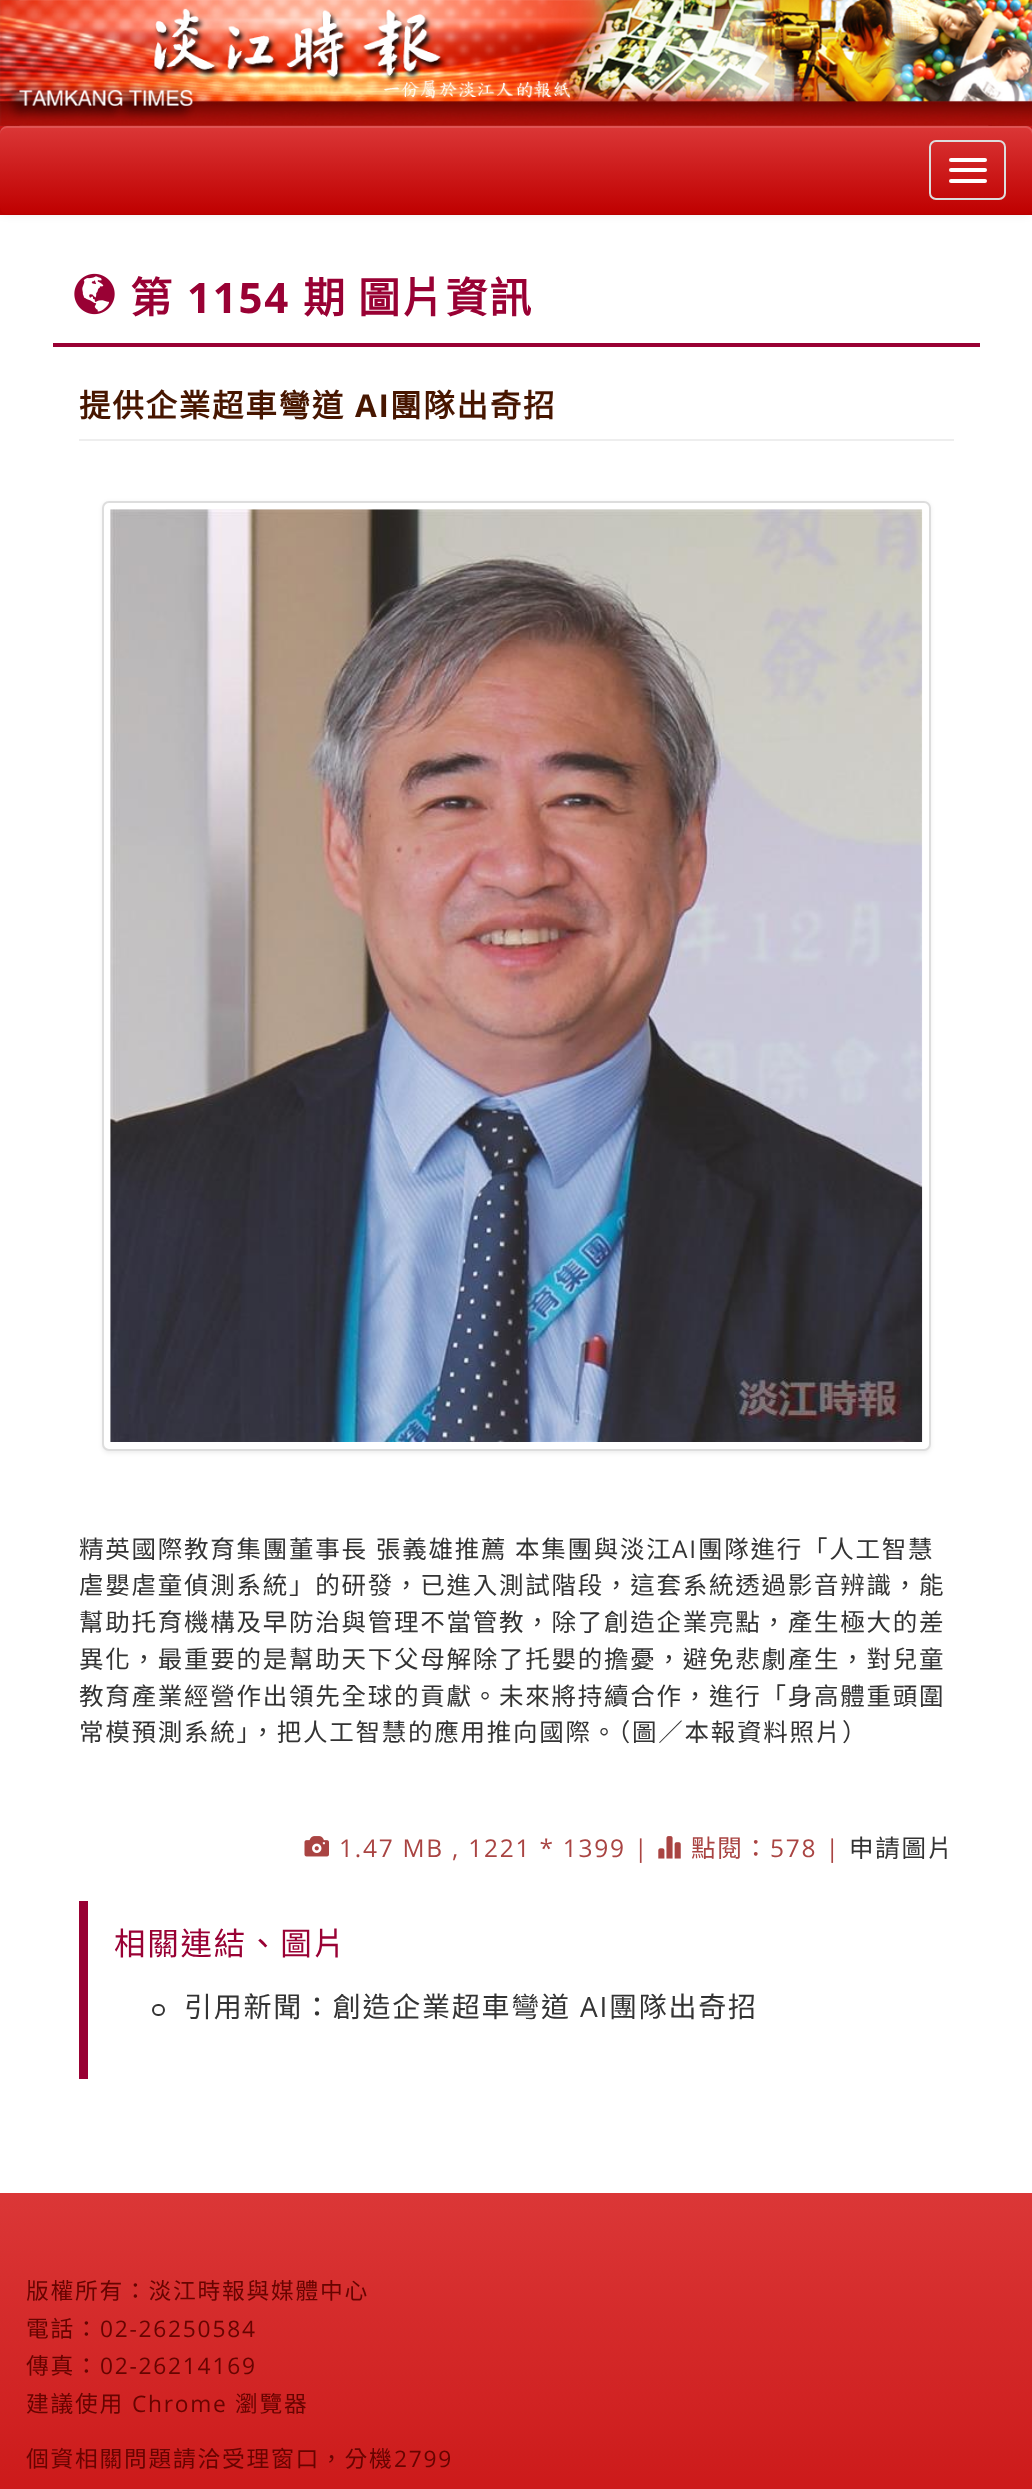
<!DOCTYPE html>
<meta charset="utf-8">
<style>body { margin: 0 } canvas { display: block }</style>
<canvas id="canvas" width="1032" height="2489"></canvas>
<script type="module">
  const canvas = document.getElementById("canvas");
  const g = canvas.getContext("2d");
  g.miterLimit = 4;
  g.fontKerning = "normal";
  function drawText(s, x, y, [font, color]) {
    g.font = font;
    g.fillStyle = color;
    g.fillText(s, x, y);
  }
  function fillBox(x, y, w, h, color) {
    g.fillStyle = color;
    g.fillRect(x, y, w, h);
  }
  function fillRounded(x, y, w, h, r, color) {
    g.fillStyle = color;
    g.beginPath();
    g.roundRect(x, y, w, h, r);
    g.fill();
  }
  async function drawPicture(src, x, y, w, h) {
    const img = new Image();
    img.src = src;
    await img.decode();
    g.drawImage(img, x, y, w, h);
  }
  let gradient;

  const s1 = ["bold 42px Noto Sans CJK TC", "#990134"];
  const s2 = ["bold 42px Open Sans", "#990134"];
  const s3 = ["bold 31.5px Noto Sans CJK TC", "#471600"];
  const s4 = ["bold 31.5px Open Sans", "#471600"];
  const s5 = ["24.5px Noto Sans CJK TC", "#333333"];
  const s6 = ["24.5px Open Sans", "#333333"];
  const s7 = ["24.5px Open Sans", "#A94442"];
  const s8 = ["24.5px Noto Sans CJK TC", "#A94442"];
  const s9 = ["31.5px Noto Sans CJK TC", "#990134"];
  const s10 = ["28px Noto Sans CJK TC", "#333333"];
  const s11 = ["28px Open Sans", "#333333"];
  const s12 = ["22.75px Noto Sans CJK TC", "#670400"];
  const s13 = ["22.75px Open Sans", "#670400"];

  fillBox(0, 0, 1032, 2489, "#FFFFFF");
  gradient = g.createLinearGradient(516, 0, 516, 215);
  gradient.addColorStop(0, "#DB3737");
  gradient.addColorStop(1, "#BF0000");
  g.fillStyle = gradient;
  g.fillRect(0, 126, 1032, 89);
  await drawPicture("pic1.png", 0, 0, 1032, 126);
  g.fillStyle = "rgba(0, 0, 0, 0.07)";
  g.filter = "blur(4.5px)";
  g.beginPath();
  g.roundRect(0, 128, 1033, 87, 7);
  g.fill();
  g.filter = "none";
  gradient = g.createLinearGradient(516, 126, 516, 214);
  gradient.addColorStop(0, "#DB3737");
  gradient.addColorStop(1, "#BF0000");
  g.fillStyle = gradient;
  g.beginPath();
  g.roundRect(0, 126, 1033, 88, 7);
  g.fill();
  g.fillStyle = "rgba(255, 255, 255, 0.15)";
  g.beginPath();
  g.moveTo(7, 128);
  g.lineTo(1026, 128);
  g.bezierCurveTo(1029, 128, 1032, 131, 1032, 135);
  g.lineTo(1032, 208);
  g.bezierCurveTo(1032, 210, 1032, 211, 1031, 212);
  g.bezierCurveTo(1032, 211, 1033, 209, 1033, 207);
  g.lineTo(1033, 133);
  g.bezierCurveTo(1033, 129, 1030, 126, 1026, 126);
  g.lineTo(7, 126);
  g.bezierCurveTo(3, 126, 0, 129, 0, 133);
  g.lineTo(0, 135);
  g.bezierCurveTo(0, 131, 3, 128, 7, 128);
  g.closePath();
  g.fill();
  g.beginPath();
  g.roundRect(930, 141, 75, 58, 6);
  g.strokeStyle = "#DDDDDD";
  g.lineWidth = 2;
  g.stroke();
  fillRounded(949, 158, 38, 4, 2, "#FFFFFF");
  fillRounded(949, 168, 38, 4, 2, "#FFFFFF");
  fillRounded(949, 179, 38, 4, 2, "#FFFFFF");
  fillBox(53, 343, 927, 4, "#990134");
  await drawPicture("pic2.png", 74, 273, 41, 42);
  g.letterSpacing = "1.75px";
  drawText("第", 130, 313, s1);
  drawText("1154", 187, 313, s2);
  drawText("期 圖片資訊", 303, 313, s1);
  fillBox(79, 439, 875, 2, "#EEEEEE");
  drawText("提供企業超車彎道", 79, 417, s3);
  drawText("AI", 355, 417, s4);
  drawText("團隊出奇招", 390, 417, s3);
  g.fillStyle = "rgba(0, 0, 0, 0.07)";
  g.filter = "blur(2px)";
  g.beginPath();
  g.roundRect(102, 502, 829, 951, 7);
  g.fill();
  g.filter = "none";
  g.fillStyle = "#FFFFFF";
  g.beginPath();
  g.roundRect(103, 502, 827, 948, 6);
  g.fill();
  g.stroke();
  await drawPicture("pic3.png", 110, 509, 813, 933);
  g.wordSpacing = "1px";
  drawText("精英國際教育集團董事長 張義雄推薦", 79, 1558, s5);
  g.wordSpacing = "0px";
  drawText("本集團與淡江", 515, 1558, s5);
  drawText("AI", 672, 1558, s6);
  drawText("團隊進行「人工智慧", 698, 1558, s5);
  drawText("虐嬰虐童偵測系統」的研發，已進入測試階段，這套系統透過影音辨識，能", 79, 1594, s5);
  drawText("幫助托育機構及早防治與管理不當管教，除了創造企業亮點，產生極大的差", 79, 1631, s5);
  drawText("異化，最重要的是幫助天下父母解除了托嬰的擔憂，避免悲劇產生，對兒童", 79, 1668, s5);
  drawText("教育產業經營作出領先全球的貢獻。未來將持續合作，進行「身高體重頭圍", 79, 1705, s5);
  drawText("常模預測系統」，把人工智慧的應用推向國際。（圖／本報資料照片）", 79, 1741, s5);
  await drawPicture("pic4.png", 304, 1836, 25, 21);
  drawText("1.47 MB , 1221 * 1399 |", 339, 1857, s7);
  await drawPicture("pic5.png", 658, 1836, 23, 23);
  drawText("點閱：", 691, 1857, s8);
  drawText("578 |", 770, 1857, s7);
  drawText("申請圖片", 849, 1857, s5);
  fillBox(79, 1901, 9, 178, "#990134");
  drawText("相關連結、圖片", 114, 1955, s9);
  g.beginPath();
  g.roundRect(153, 2005, 11, 10, 5);
  g.strokeStyle = "#333333";
  g.stroke();
  drawText("引用新聞：創造企業超車彎道", 184, 2017, s10);
  drawText("AI", 580, 2017, s11);
  drawText("團隊出奇招", 609, 2017, s10);
  gradient = g.createLinearGradient(516, 2193, 516, 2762);
  gradient.addColorStop(0, "#DB3737");
  gradient.addColorStop(1, "#BF0000");
  g.fillStyle = gradient;
  g.fillRect(0, 2193, 1032, 296);
  drawText("版權所有：淡江時報與媒體中心", 26, 2299, s12);
  drawText("電話：", 26, 2337, s12);
  drawText("02-26250584", 100, 2337, s13);
  drawText("傳真：", 26, 2374, s12);
  drawText("02-26214169", 100, 2374, s13);
  drawText("建議使用", 26, 2412, s12);
  drawText("Chrome", 132, 2412, s13);
  drawText("瀏覽器", 235, 2412, s12);
  drawText("個資相關問題請洽受理窗口，分機", 26, 2467, s12);
  drawText("2799", 394, 2467, s13);
</script>
